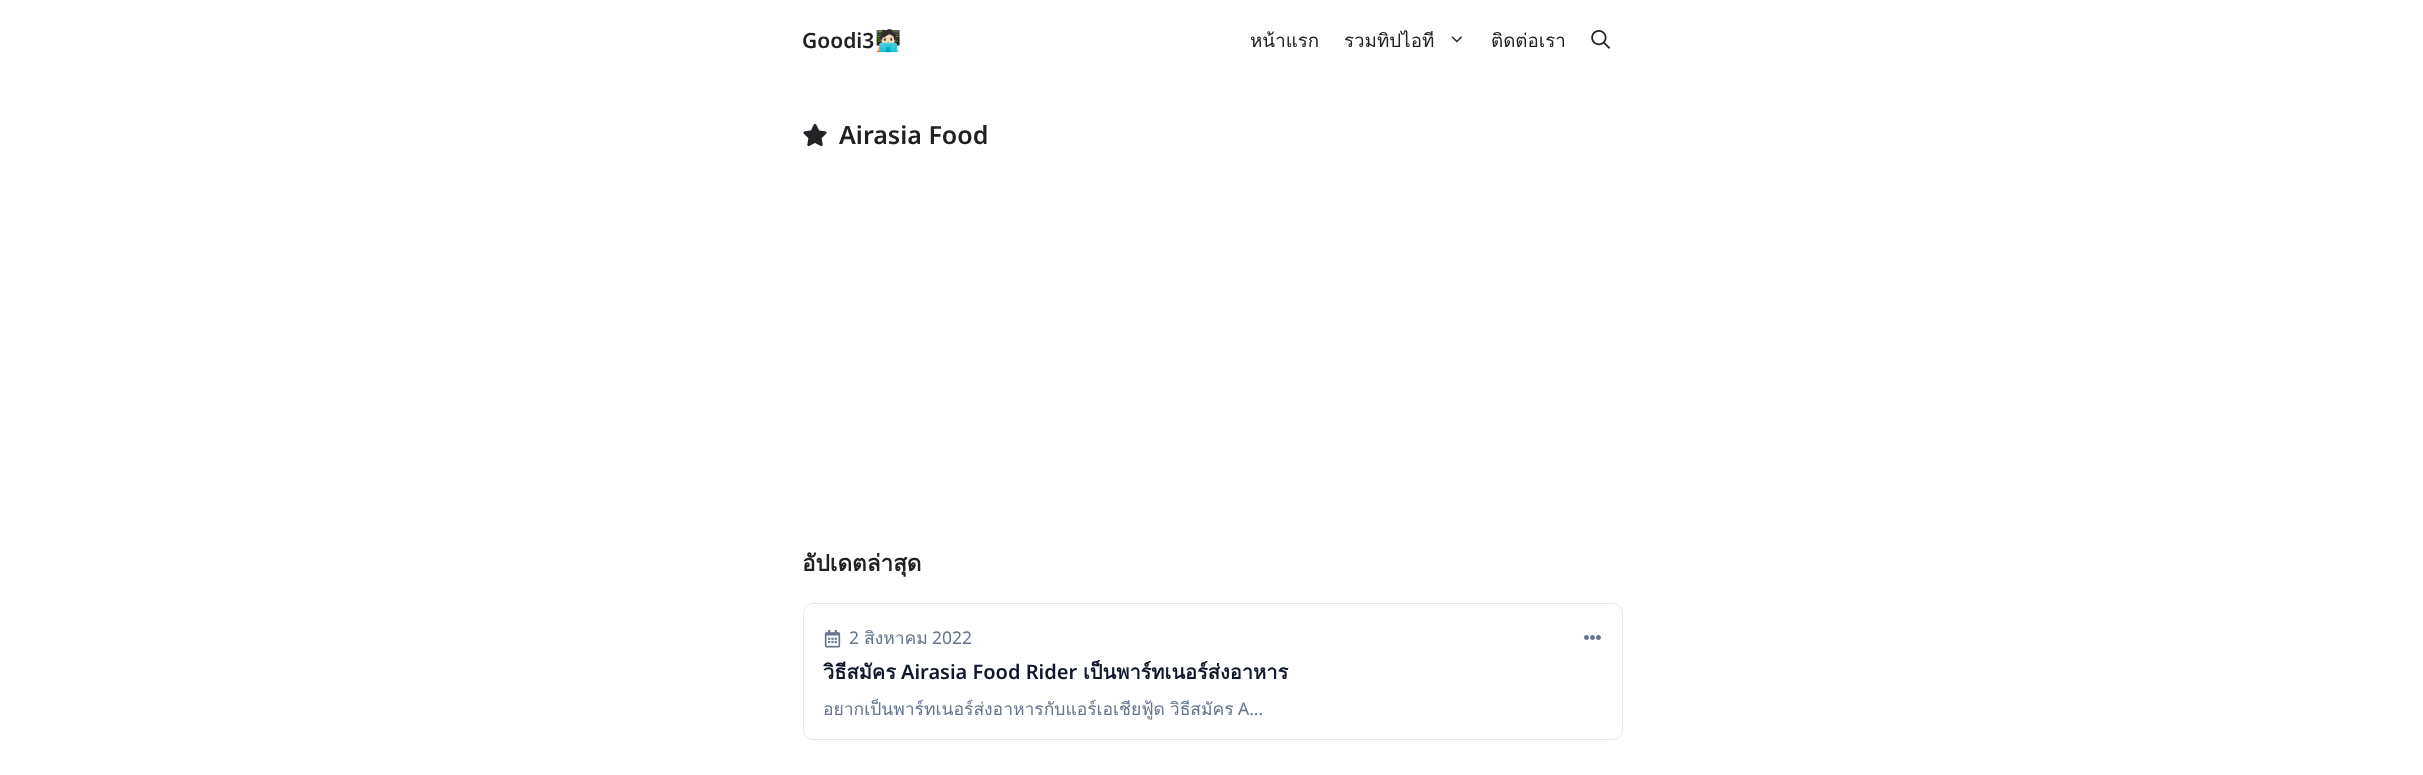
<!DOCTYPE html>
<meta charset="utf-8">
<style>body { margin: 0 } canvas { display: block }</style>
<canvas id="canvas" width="2423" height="775"></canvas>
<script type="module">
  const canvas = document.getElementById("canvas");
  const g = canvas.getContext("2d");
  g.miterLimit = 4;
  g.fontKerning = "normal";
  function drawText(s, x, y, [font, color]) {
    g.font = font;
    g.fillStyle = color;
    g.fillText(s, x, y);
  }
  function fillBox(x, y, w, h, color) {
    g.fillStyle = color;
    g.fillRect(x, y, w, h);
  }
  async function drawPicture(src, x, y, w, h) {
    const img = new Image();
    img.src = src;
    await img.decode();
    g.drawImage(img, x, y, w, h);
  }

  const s1 = ["600 21px Noto Sans", "#212121"];
  const s2 = ["bold 21px Noto Color Emoji", "#212121"];
  const s3 = ["18.75px Loma", "#212121"];
  const s4 = ["600 25px Noto Sans", "#212121"];
  const s5 = ["bold 22.5px Loma", "#212121"];
  const s6 = ["17.5px Noto Sans", "#64748B"];
  const s7 = ["17.5px Loma", "#64748B"];
  const s8 = ["bold 20px Loma", "#0F172A"];
  const s9 = ["600 20px Noto Sans", "#0F172A"];

  fillBox(0, 0, 2423, 775, "#FFFFFF");
  drawText("Goodi3", 802, 48, s1);
  drawText("🧑🏻‍💻", 875, 48, s2);
  drawText("หน้าแรก", 1250, 47, s3);
  drawText("รวมทิปไอที", 1344, 47, s3);
  await drawPicture("pic1.png", 1451, 36, 11, 7);
  drawText("ติดต่อเรา", 1491, 47, s3);
  await drawPicture("pic2.png", 1591, 30, 19, 19);
  await drawPicture("pic3.png", 803, 123, 24, 24);
  drawText("Airasia Food", 839, 144, s4);
  drawText("อัปเดตล่าสุด", 802, 571, s5);
  g.beginPath();
  g.roundRect(803.5, 603.5, 819, 136, 9.5);
  g.strokeStyle = "#E2E8F0";
  g.stroke();
  await drawPicture("pic4.png", 824, 630, 17, 18);
  drawText("2", 849, 644, s6);
  drawText("สิงหาคม", 864, 644, s7);
  drawText("2022", 932, 644, s6);
  await drawPicture("pic5.png", 1584, 635, 17, 5);
  drawText("วิธีสมัคร", 823, 679, s8);
  drawText("Airasia Food Rider", 901, 679, s9);
  drawText("เป็นพาร์ทเนอร์ส่งอาหาร", 1083, 679, s8);
  g.wordSpacing = "-1px";
  drawText("อยากเป็นพาร์ทเนอร์ส่งอาหารกับแอร์เอเชียฟู้ด วิธีสมัคร", 823, 715, s7);
  g.wordSpacing = "0px";
  drawText("A...", 1238, 715, s6);
</script>
